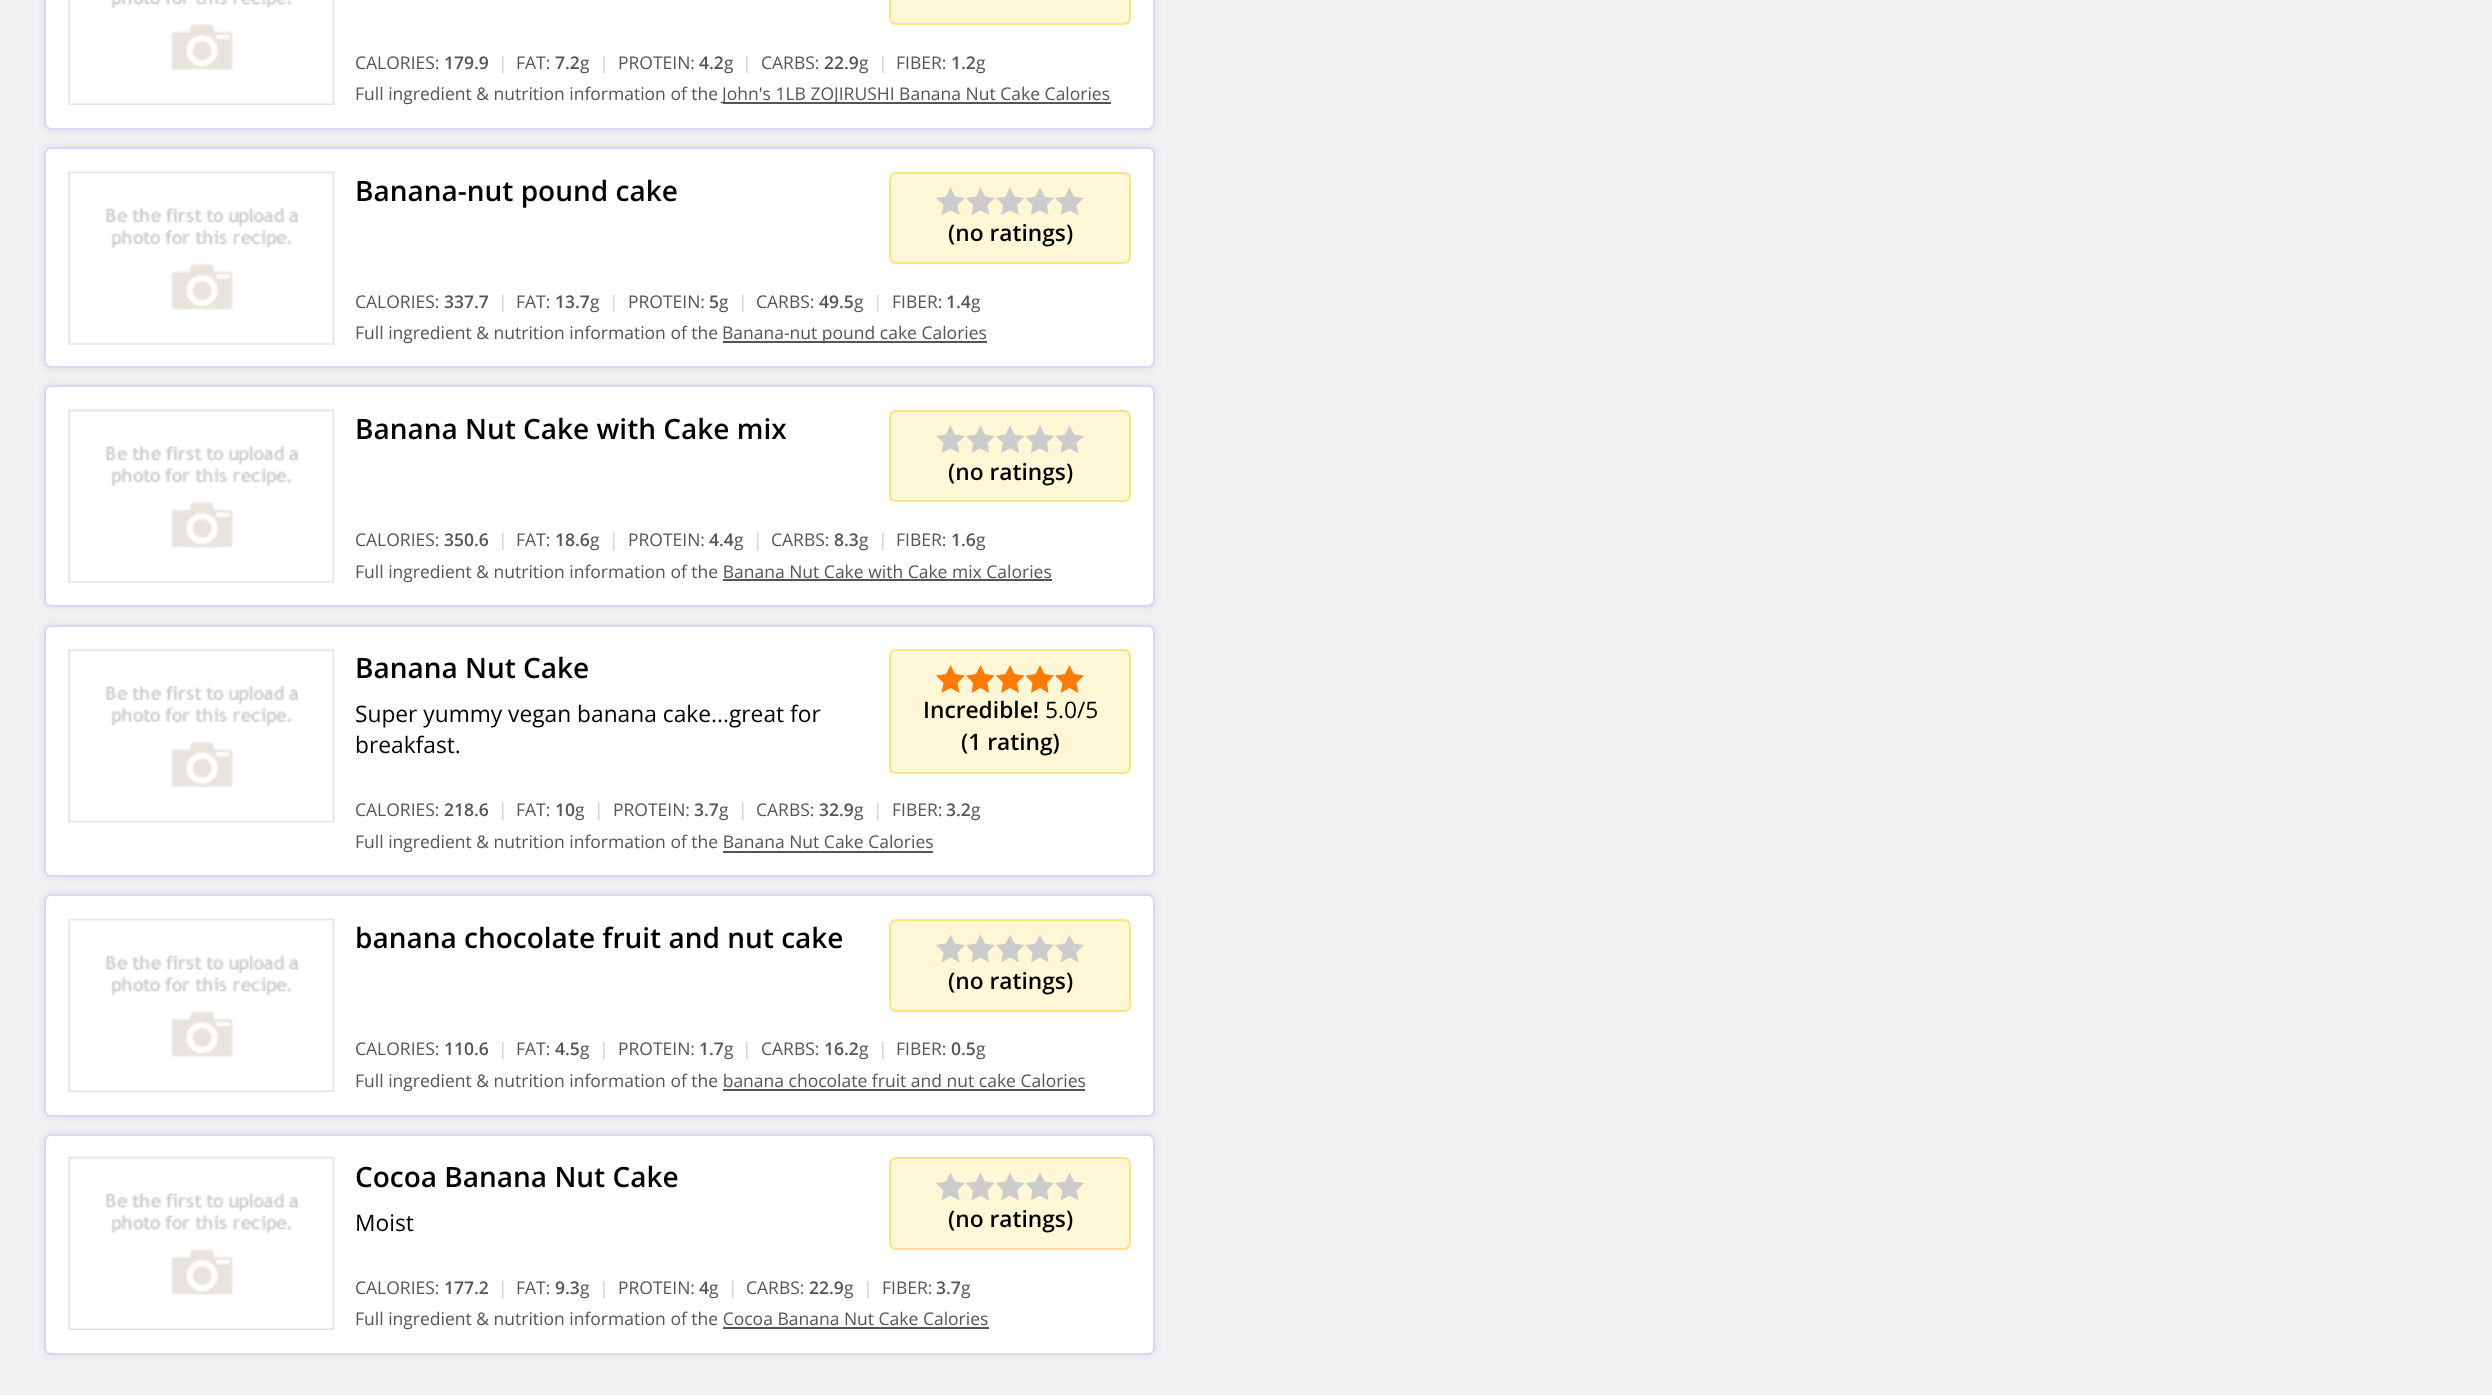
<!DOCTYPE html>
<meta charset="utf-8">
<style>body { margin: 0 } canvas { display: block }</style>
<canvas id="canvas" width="2492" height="1395"></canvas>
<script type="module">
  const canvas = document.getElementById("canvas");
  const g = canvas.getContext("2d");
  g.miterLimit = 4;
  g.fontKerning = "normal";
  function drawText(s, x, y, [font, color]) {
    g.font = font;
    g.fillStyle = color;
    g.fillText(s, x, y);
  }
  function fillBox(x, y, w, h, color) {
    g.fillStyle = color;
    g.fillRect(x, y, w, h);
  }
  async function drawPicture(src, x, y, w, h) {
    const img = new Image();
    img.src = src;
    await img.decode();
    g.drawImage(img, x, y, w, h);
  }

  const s1 = ["17.5px Open Sans", "#555555"];
  const s2 = ["600 17.5px Open Sans", "#555555"];
  const s3 = ["17.5px Open Sans", "#CCCCCC"];
  const s4 = ["600 28px Open Sans", "#000000"];
  const s5 = ["600 22.75px Open Sans", "#000000"];
  const s6 = ["22.75px Open Sans", "#000000"];

  fillBox(0, 0, 2492, 1395, "#F1F2F3");
  g.fillStyle = "#DADADA";
  g.filter = "blur(4.5px)";
  g.beginPath();
  g.roundRect(44, -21, 1111, 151, 7);
  g.fill();
  g.filter = "none";
  g.fillStyle = "#FFFFFF";
  g.beginPath();
  g.roundRect(45, -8, 1109, 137, 6);
  g.fill();
  g.strokeStyle = "#D7D7F9";
  g.lineWidth = 2;
  g.stroke();
  await drawPicture("pic1.png", 68, 0, 267, 105);
  g.fillStyle = "#FFF7D6";
  g.beginPath();
  g.roundRect(890, -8, 240, 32, 6);
  g.fill();
  g.strokeStyle = "#FFE282";
  g.stroke();
  drawText("CALORIES:", 355, 69, s1);
  drawText("179.9", 444, 69, s2);
  drawText("|", 498, 69, s3);
  drawText("FAT:", 516, 69, s1);
  drawText("7.2", 555, 69, s2);
  drawText("g", 580, 69, s1);
  drawText("|", 599, 69, s3);
  drawText("PROTEIN:", 618, 69, s1);
  drawText("4.2", 699, 69, s2);
  drawText("g", 724, 69, s1);
  drawText("|", 742, 69, s3);
  drawText("CARBS:", 761, 69, s1);
  drawText("22.9", 824, 69, s2);
  drawText("g", 859, 69, s1);
  drawText("|", 878, 69, s3);
  drawText("FIBER:", 896, 69, s1);
  drawText("1.2", 951, 69, s2);
  drawText("g", 976, 69, s1);
  drawText("Full ingredient & nutrition information of the", 355, 100, s1);
  fillBox(723, 102, 388, 2, "#555555");
  drawText("John's 1LB ZOJIRUSHI Banana Nut Cake Calories", 722, 100, s1);
  g.fillStyle = "#DADADA";
  g.filter = "blur(4.5px)";
  g.beginPath();
  g.roundRect(44, 147, 1111, 221, 7);
  g.fill();
  g.filter = "none";
  g.fillStyle = "#FFFFFF";
  g.beginPath();
  g.roundRect(45, 148, 1109, 219, 6);
  g.fill();
  g.strokeStyle = "#D7D7F9";
  g.stroke();
  await drawPicture("pic2.png", 68, 171, 267, 174);
  drawText("Banana-nut pound cake", 355, 201, s4);
  g.fillStyle = "#FFF7D6";
  g.beginPath();
  g.roundRect(890, 173, 240, 90, 6);
  g.fill();
  g.strokeStyle = "#FFE282";
  g.stroke();
  g.fillStyle = "#CCCCCC";
  g.beginPath();
  g.moveTo(950.5, 187);
  g.lineTo(955, 196.5);
  g.lineTo(965, 198);
  g.lineTo(957.5, 205);
  g.lineTo(959.5, 215);
  g.lineTo(950.5, 210.5);
  g.lineTo(941.5, 215);
  g.lineTo(943.5, 205);
  g.lineTo(936, 198);
  g.lineTo(946, 196.5);
  g.closePath();
  g.moveTo(980.5, 187);
  g.lineTo(985, 196.5);
  g.lineTo(994.5, 198);
  g.lineTo(987.5, 205);
  g.lineTo(989, 215);
  g.lineTo(980.5, 210.5);
  g.lineTo(971.5, 215);
  g.lineTo(973, 205);
  g.lineTo(966, 198);
  g.lineTo(976, 196.5);
  g.closePath();
  g.fill();
  g.beginPath();
  g.moveTo(1010, 187);
  g.lineTo(1014.5, 196.5);
  g.lineTo(1024.5, 198);
  g.lineTo(1017, 205);
  g.lineTo(1019, 215);
  g.lineTo(1010, 210.5);
  g.lineTo(1001, 215);
  g.lineTo(1003, 205);
  g.lineTo(996, 198);
  g.lineTo(1005.5, 196.5);
  g.closePath();
  g.moveTo(1040, 187);
  g.lineTo(1044.5, 196.5);
  g.lineTo(1054, 198);
  g.lineTo(1047, 205);
  g.lineTo(1048.5, 215);
  g.lineTo(1040, 210.5);
  g.lineTo(1031, 215);
  g.lineTo(1032.5, 205);
  g.lineTo(1025.5, 198);
  g.lineTo(1035.5, 196.5);
  g.closePath();
  g.fill();
  g.beginPath();
  g.moveTo(1069.5, 187);
  g.lineTo(1074, 196.5);
  g.lineTo(1084, 198);
  g.lineTo(1076.5, 205);
  g.lineTo(1078.5, 215);
  g.lineTo(1069.5, 210.5);
  g.lineTo(1060.5, 215);
  g.lineTo(1062.5, 205);
  g.lineTo(1055, 198);
  g.lineTo(1065, 196.5);
  g.closePath();
  g.fill();
  drawText("(no ratings)", 948, 241, s5);
  drawText("CALORIES:", 355, 308, s1);
  drawText("337.7", 444, 308, s2);
  drawText("|", 498, 308, s3);
  drawText("FAT:", 516, 308, s1);
  drawText("13.7", 555, 308, s2);
  drawText("g", 590, 308, s1);
  drawText("|", 609, 308, s3);
  drawText("PROTEIN:", 628, 308, s1);
  drawText("5", 709, 308, s2);
  drawText("g", 719, 308, s1);
  drawText("|", 738, 308, s3);
  drawText("CARBS:", 756, 308, s1);
  drawText("49.5", 819, 308, s2);
  drawText("g", 854, 308, s1);
  drawText("|", 873, 308, s3);
  drawText("FIBER:", 892, 308, s1);
  drawText("1.4", 946, 308, s2);
  drawText("g", 971, 308, s1);
  drawText("Full ingredient & nutrition information of the", 355, 339, s1);
  fillBox(723, 341, 264, 2, "#555555");
  drawText("Banana-nut pound cake Calories", 722, 339, s1);
  g.fillStyle = "#DADADA";
  g.filter = "blur(4.5px)";
  g.beginPath();
  g.roundRect(44, 385, 1111, 222, 7);
  g.fill();
  g.filter = "none";
  g.fillStyle = "#FFFFFF";
  g.beginPath();
  g.roundRect(45, 386, 1109, 220, 6);
  g.fill();
  g.strokeStyle = "#D7D7F9";
  g.stroke();
  await drawPicture("pic2.png", 68, 409, 267, 174);
  drawText("Banana Nut Cake with Cake mix", 355, 439, s4);
  g.fillStyle = "#FFF7D6";
  g.beginPath();
  g.roundRect(890, 411, 240, 90, 6);
  g.fill();
  g.strokeStyle = "#FFE282";
  g.stroke();
  g.fillStyle = "#CCCCCC";
  g.beginPath();
  g.moveTo(950.5, 425);
  g.lineTo(955, 434.5);
  g.lineTo(965, 436);
  g.lineTo(957.5, 443);
  g.lineTo(959.5, 453);
  g.lineTo(950.5, 448.5);
  g.lineTo(941.5, 453);
  g.lineTo(943.5, 443);
  g.lineTo(936, 436);
  g.lineTo(946, 434.5);
  g.closePath();
  g.moveTo(980.5, 425);
  g.lineTo(985, 434.5);
  g.lineTo(994.5, 436);
  g.lineTo(987.5, 443);
  g.lineTo(989, 453);
  g.lineTo(980.5, 448.5);
  g.lineTo(971.5, 453);
  g.lineTo(973, 443);
  g.lineTo(966, 436);
  g.lineTo(976, 434.5);
  g.closePath();
  g.fill();
  g.beginPath();
  g.moveTo(1010, 425);
  g.lineTo(1014.5, 434.5);
  g.lineTo(1024.5, 436);
  g.lineTo(1017, 443);
  g.lineTo(1019, 453);
  g.lineTo(1010, 448.5);
  g.lineTo(1001, 453);
  g.lineTo(1003, 443);
  g.lineTo(996, 436);
  g.lineTo(1005.5, 434.5);
  g.closePath();
  g.moveTo(1040, 425);
  g.lineTo(1044.5, 434.5);
  g.lineTo(1054, 436);
  g.lineTo(1047, 443);
  g.lineTo(1048.5, 453);
  g.lineTo(1040, 448.5);
  g.lineTo(1031, 453);
  g.lineTo(1032.5, 443);
  g.lineTo(1025.5, 436);
  g.lineTo(1035.5, 434.5);
  g.closePath();
  g.fill();
  g.beginPath();
  g.moveTo(1069.5, 425);
  g.lineTo(1074, 434.5);
  g.lineTo(1084, 436);
  g.lineTo(1076.5, 443);
  g.lineTo(1078.5, 453);
  g.lineTo(1069.5, 448.5);
  g.lineTo(1060.5, 453);
  g.lineTo(1062.5, 443);
  g.lineTo(1055, 436);
  g.lineTo(1065, 434.5);
  g.closePath();
  g.fill();
  drawText("(no ratings)", 948, 480, s5);
  drawText("CALORIES:", 355, 546, s1);
  drawText("350.6", 444, 546, s2);
  drawText("|", 498, 546, s3);
  drawText("FAT:", 516, 546, s1);
  drawText("18.6", 555, 546, s2);
  drawText("g", 590, 546, s1);
  drawText("|", 609, 546, s3);
  drawText("PROTEIN:", 628, 546, s1);
  drawText("4.4", 709, 546, s2);
  drawText("g", 734, 546, s1);
  drawText("|", 753, 546, s3);
  drawText("CARBS:", 771, 546, s1);
  drawText("8.3", 834, 546, s2);
  drawText("g", 859, 546, s1);
  drawText("|", 878, 546, s3);
  drawText("FIBER:", 896, 546, s1);
  drawText("1.6", 951, 546, s2);
  drawText("g", 976, 546, s1);
  drawText("Full ingredient & nutrition information of the Banana Nut Cake with Cake mix Calories", 355, 578, s1);
  fillBox(723, 579, 329, 2, "#555555");
  g.fillStyle = "#DADADA";
  g.filter = "blur(4.5px)";
  g.beginPath();
  g.roundRect(44, 625, 1111, 252, 7);
  g.fill();
  g.filter = "none";
  g.fillStyle = "#FFFFFF";
  g.beginPath();
  g.roundRect(45, 626, 1109, 250, 6);
  g.fill();
  g.strokeStyle = "#D7D7F9";
  g.stroke();
  await drawPicture("pic3.png", 68, 649, 267, 174);
  drawText("Banana Nut Cake", 355, 678, s4);
  drawText("Super yummy vegan banana cake...great for", 355, 722, s6);
  drawText("breakfast.", 355, 753, s6);
  g.fillStyle = "#FFF7D6";
  g.beginPath();
  g.roundRect(890, 650, 240, 123, 6);
  g.fill();
  g.strokeStyle = "#FFE282";
  g.stroke();
  g.fillStyle = "#FF7B08";
  g.beginPath();
  g.moveTo(950.5, 665);
  g.lineTo(955, 674);
  g.lineTo(965, 675.5);
  g.lineTo(957.5, 683);
  g.lineTo(959.5, 693);
  g.lineTo(950.5, 688);
  g.lineTo(941.5, 693);
  g.lineTo(943.5, 683);
  g.lineTo(936, 675.5);
  g.lineTo(946, 674);
  g.closePath();
  g.moveTo(980.5, 665);
  g.lineTo(985, 674);
  g.lineTo(994.5, 675.5);
  g.lineTo(987.5, 683);
  g.lineTo(989, 693);
  g.lineTo(980.5, 688);
  g.lineTo(971.5, 693);
  g.lineTo(973, 683);
  g.lineTo(966, 675.5);
  g.lineTo(976, 674);
  g.closePath();
  g.fill();
  g.beginPath();
  g.moveTo(1010, 665);
  g.lineTo(1014.5, 674);
  g.lineTo(1024.5, 675.5);
  g.lineTo(1017, 683);
  g.lineTo(1019, 693);
  g.lineTo(1010, 688);
  g.lineTo(1001, 693);
  g.lineTo(1003, 683);
  g.lineTo(996, 675.5);
  g.lineTo(1005.5, 674);
  g.closePath();
  g.moveTo(1040, 665);
  g.lineTo(1044.5, 674);
  g.lineTo(1054, 675.5);
  g.lineTo(1047, 683);
  g.lineTo(1048.5, 693);
  g.lineTo(1040, 688);
  g.lineTo(1031, 693);
  g.lineTo(1032.5, 683);
  g.lineTo(1025.5, 675.5);
  g.lineTo(1035.5, 674);
  g.closePath();
  g.fill();
  g.beginPath();
  g.moveTo(1069.5, 665);
  g.lineTo(1074, 674);
  g.lineTo(1084, 675.5);
  g.lineTo(1076.5, 683);
  g.lineTo(1078.5, 693);
  g.lineTo(1069.5, 688);
  g.lineTo(1060.5, 693);
  g.lineTo(1062.5, 683);
  g.lineTo(1055, 675.5);
  g.lineTo(1065, 674);
  g.closePath();
  g.fill();
  drawText("Incredible!", 923, 718, s5);
  drawText("5.0/5", 1045, 718, s6);
  drawText("(1 rating)", 961, 750, s5);
  drawText("CALORIES:", 355, 816, s1);
  drawText("218.6", 444, 816, s2);
  drawText("|", 498, 816, s3);
  drawText("FAT:", 516, 816, s1);
  drawText("10", 555, 816, s2);
  drawText("g", 575, 816, s1);
  drawText("|", 594, 816, s3);
  drawText("PROTEIN:", 613, 816, s1);
  drawText("3.7", 694, 816, s2);
  drawText("g", 719, 816, s1);
  drawText("|", 738, 816, s3);
  drawText("CARBS:", 756, 816, s1);
  drawText("32.9", 819, 816, s2);
  drawText("g", 854, 816, s1);
  drawText("|", 873, 816, s3);
  drawText("FIBER:", 892, 816, s1);
  drawText("3.2", 946, 816, s2);
  drawText("g", 971, 816, s1);
  drawText("Full ingredient & nutrition information of the Banana Nut Cake Calories", 355, 848, s1);
  fillBox(723, 851, 210, 2, "#555555");
  g.fillStyle = "#DADADA";
  g.filter = "blur(4.5px)";
  g.beginPath();
  g.roundRect(44, 894, 1111, 223, 7);
  g.fill();
  g.filter = "none";
  g.fillStyle = "#FFFFFF";
  g.beginPath();
  g.roundRect(45, 895, 1109, 221, 6);
  g.fill();
  g.strokeStyle = "#D7D7F9";
  g.stroke();
  await drawPicture("pic4.png", 68, 918, 267, 174);
  drawText("banana chocolate fruit and nut cake", 355, 948, s4);
  g.fillStyle = "#FFF7D6";
  g.beginPath();
  g.roundRect(890, 920, 240, 91, 6);
  g.fill();
  g.strokeStyle = "#FFE282";
  g.stroke();
  g.fillStyle = "#CCCCCC";
  g.beginPath();
  g.moveTo(950.5, 934.5);
  g.lineTo(955, 943.5);
  g.lineTo(965, 945);
  g.lineTo(957.5, 952.5);
  g.lineTo(959.5, 962.5);
  g.lineTo(950.5, 957.5);
  g.lineTo(941.5, 962.5);
  g.lineTo(943.5, 952.5);
  g.lineTo(936, 945);
  g.lineTo(946, 943.5);
  g.closePath();
  g.moveTo(980.5, 934.5);
  g.lineTo(985, 943.5);
  g.lineTo(994.5, 945);
  g.lineTo(987.5, 952.5);
  g.lineTo(989, 962.5);
  g.lineTo(980.5, 957.5);
  g.lineTo(971.5, 962.5);
  g.lineTo(973, 952.5);
  g.lineTo(966, 945);
  g.lineTo(976, 943.5);
  g.closePath();
  g.fill();
  g.beginPath();
  g.moveTo(1010, 934.5);
  g.lineTo(1014.5, 943.5);
  g.lineTo(1024.5, 945);
  g.lineTo(1017, 952.5);
  g.lineTo(1019, 962.5);
  g.lineTo(1010, 957.5);
  g.lineTo(1001, 962.5);
  g.lineTo(1003, 952.5);
  g.lineTo(996, 945);
  g.lineTo(1005.5, 943.5);
  g.closePath();
  g.fill();
  g.save();
  g.beginPath();
  g.rect(1026, 935, 29, 28);
  g.clip();
  g.beginPath();
  g.moveTo(1040, 934.5);
  g.lineTo(1044.5, 943.5);
  g.lineTo(1054, 945);
  g.lineTo(1047, 952.5);
  g.lineTo(1048.5, 962.5);
  g.lineTo(1040, 957.5);
  g.lineTo(1031, 962.5);
  g.lineTo(1032.5, 952.5);
  g.lineTo(1025.5, 945);
  g.lineTo(1035.5, 943.5);
  g.closePath();
  g.fill();
  g.restore();
  g.beginPath();
  g.moveTo(1069.5, 934.5);
  g.lineTo(1074, 943.5);
  g.lineTo(1084, 945);
  g.lineTo(1076.5, 952.5);
  g.lineTo(1078.5, 962.5);
  g.lineTo(1069.5, 957.5);
  g.lineTo(1060.5, 962.5);
  g.lineTo(1062.5, 952.5);
  g.lineTo(1055, 945);
  g.lineTo(1065, 943.5);
  g.closePath();
  g.fill();
  drawText("(no ratings)", 948, 989, s5);
  drawText("CALORIES:", 355, 1055, s1);
  drawText("110.6", 444, 1055, s2);
  drawText("|", 498, 1055, s3);
  drawText("FAT:", 516, 1055, s1);
  drawText("4.5", 555, 1055, s2);
  drawText("g", 580, 1055, s1);
  drawText("|", 599, 1055, s3);
  drawText("PROTEIN:", 618, 1055, s1);
  drawText("1.7", 699, 1055, s2);
  drawText("g", 724, 1055, s1);
  drawText("|", 742, 1055, s3);
  drawText("CARBS:", 761, 1055, s1);
  drawText("16.2", 824, 1055, s2);
  drawText("g", 859, 1055, s1);
  drawText("|", 878, 1055, s3);
  drawText("FIBER:", 896, 1055, s1);
  drawText("0.5", 951, 1055, s2);
  drawText("g", 976, 1055, s1);
  drawText("Full ingredient & nutrition information of the banana chocolate fruit and nut cake Calories", 355, 1087, s1);
  fillBox(723, 1089, 362, 2, "#555555");
  g.fillStyle = "#DADADA";
  g.filter = "blur(4.5px)";
  g.beginPath();
  g.roundRect(44, 1134, 1111, 221, 7);
  g.fill();
  g.filter = "none";
  g.fillStyle = "#FFFFFF";
  g.beginPath();
  g.roundRect(45, 1135, 1109, 219, 6);
  g.fill();
  g.strokeStyle = "#D7D7F9";
  g.stroke();
  await drawPicture("pic4.png", 68, 1156, 267, 174);
  drawText("Cocoa Banana Nut Cake", 355, 1187, s4);
  drawText("Moist", 355, 1231, s6);
  g.fillStyle = "#FFF7D6";
  g.beginPath();
  g.roundRect(890, 1158, 240, 91, 6);
  g.fill();
  g.strokeStyle = "#FFE282";
  g.stroke();
  g.fillStyle = "#CCCCCC";
  g.beginPath();
  g.moveTo(950.5, 1172.5);
  g.lineTo(955, 1181.5);
  g.lineTo(965, 1183);
  g.lineTo(957.5, 1190.5);
  g.lineTo(959.5, 1200.5);
  g.lineTo(950.5, 1195.5);
  g.lineTo(941.5, 1200.5);
  g.lineTo(943.5, 1190.5);
  g.lineTo(936, 1183);
  g.lineTo(946, 1181.5);
  g.closePath();
  g.moveTo(980.5, 1172.5);
  g.lineTo(985, 1181.5);
  g.lineTo(994.5, 1183);
  g.lineTo(987.5, 1190.5);
  g.lineTo(989, 1200.5);
  g.lineTo(980.5, 1195.5);
  g.lineTo(971.5, 1200.5);
  g.lineTo(973, 1190.5);
  g.lineTo(966, 1183);
  g.lineTo(976, 1181.5);
  g.closePath();
  g.fill();
  g.beginPath();
  g.moveTo(1010, 1172.5);
  g.lineTo(1014.5, 1181.5);
  g.lineTo(1024.5, 1183);
  g.lineTo(1017, 1190.5);
  g.lineTo(1019, 1200.5);
  g.lineTo(1010, 1195.5);
  g.lineTo(1001, 1200.5);
  g.lineTo(1003, 1190.5);
  g.lineTo(996, 1183);
  g.lineTo(1005.5, 1181.5);
  g.closePath();
  g.fill();
  g.save();
  g.beginPath();
  g.rect(1026, 1173, 29, 28);
  g.clip();
  g.beginPath();
  g.moveTo(1040, 1172.5);
  g.lineTo(1044.5, 1181.5);
  g.lineTo(1054, 1183);
  g.lineTo(1047, 1190.5);
  g.lineTo(1048.5, 1200.5);
  g.lineTo(1040, 1195.5);
  g.lineTo(1031, 1200.5);
  g.lineTo(1032.5, 1190.5);
  g.lineTo(1025.5, 1183);
  g.lineTo(1035.5, 1181.5);
  g.closePath();
  g.fill();
  g.restore();
  g.beginPath();
  g.moveTo(1069.5, 1172.5);
  g.lineTo(1074, 1181.5);
  g.lineTo(1084, 1183);
  g.lineTo(1076.5, 1190.5);
  g.lineTo(1078.5, 1200.5);
  g.lineTo(1069.5, 1195.5);
  g.lineTo(1060.5, 1200.5);
  g.lineTo(1062.5, 1190.5);
  g.lineTo(1055, 1183);
  g.lineTo(1065, 1181.5);
  g.closePath();
  g.fill();
  drawText("(no ratings)", 948, 1227, s5);
  drawText("CALORIES:", 355, 1294, s1);
  drawText("177.2", 444, 1294, s2);
  drawText("|", 498, 1294, s3);
  drawText("FAT:", 516, 1294, s1);
  drawText("9.3", 555, 1294, s2);
  drawText("g", 580, 1294, s1);
  drawText("|", 599, 1294, s3);
  drawText("PROTEIN:", 618, 1294, s1);
  drawText("4", 699, 1294, s2);
  drawText("g", 709, 1294, s1);
  drawText("|", 728, 1294, s3);
  drawText("CARBS:", 746, 1294, s1);
  drawText("22.9", 809, 1294, s2);
  drawText("g", 844, 1294, s1);
  drawText("|", 863, 1294, s3);
  drawText("FIBER:", 882, 1294, s1);
  drawText("3.7", 936, 1294, s2);
  drawText("g", 961, 1294, s1);
  drawText("Full ingredient & nutrition information of the Cocoa Banana Nut Cake Calories", 355, 1325, s1);
  fillBox(723, 1327, 266, 2, "#555555");
</script>
